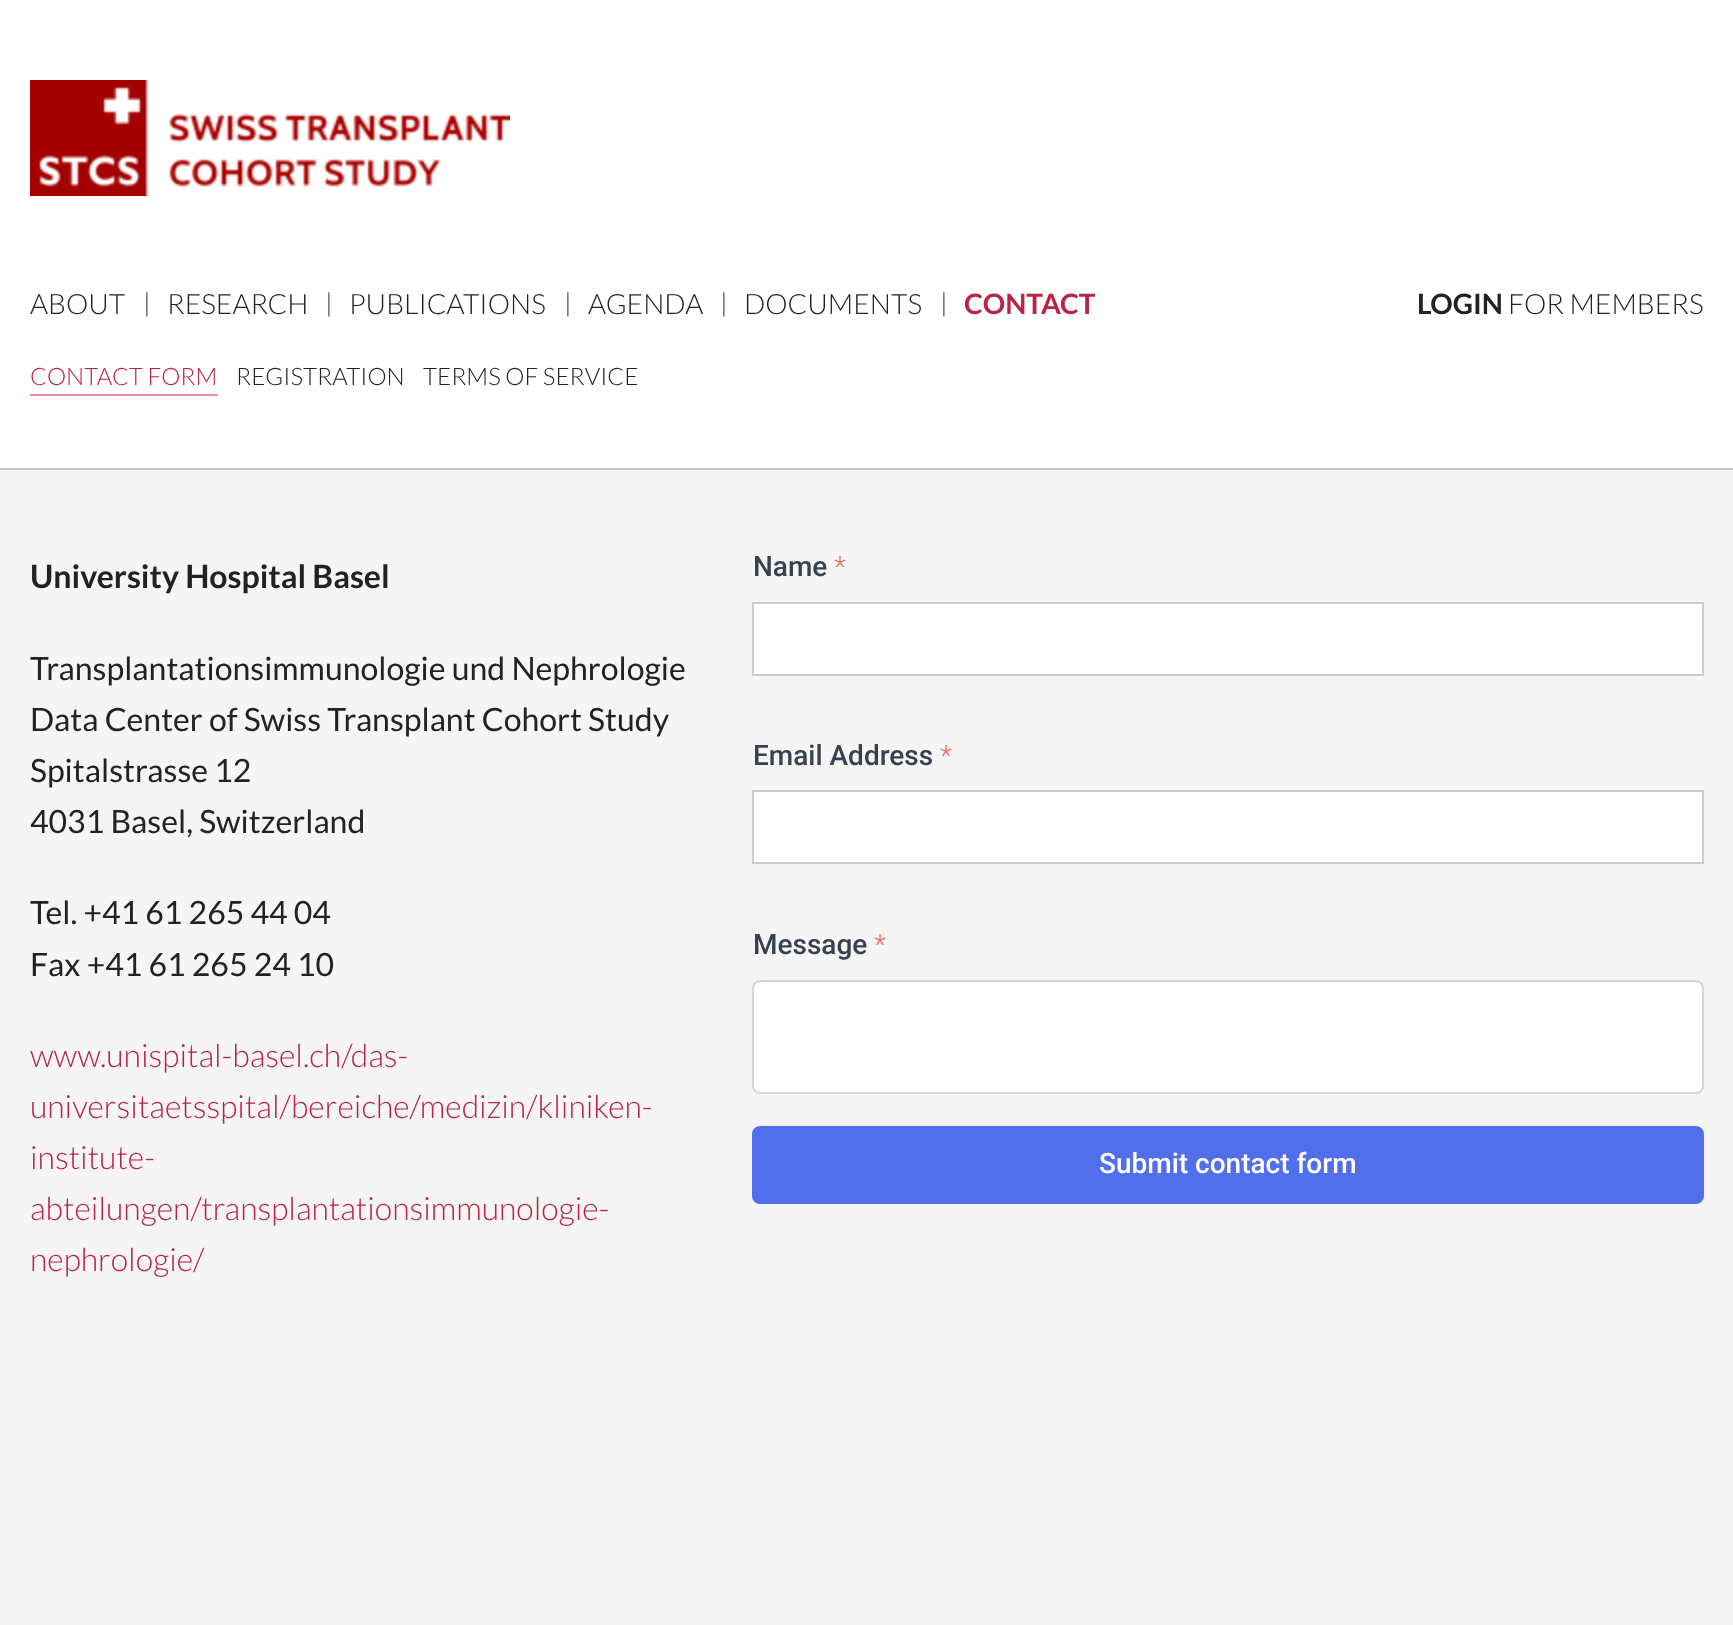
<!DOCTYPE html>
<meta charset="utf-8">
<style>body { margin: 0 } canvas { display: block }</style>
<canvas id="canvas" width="1733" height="1625"></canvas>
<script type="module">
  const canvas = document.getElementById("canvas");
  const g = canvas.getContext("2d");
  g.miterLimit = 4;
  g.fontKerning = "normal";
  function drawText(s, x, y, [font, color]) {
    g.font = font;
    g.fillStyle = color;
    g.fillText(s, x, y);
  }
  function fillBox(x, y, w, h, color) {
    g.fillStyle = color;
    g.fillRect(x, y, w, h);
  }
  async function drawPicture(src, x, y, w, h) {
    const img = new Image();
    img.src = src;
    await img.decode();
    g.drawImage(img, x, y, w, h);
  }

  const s1 = ["300 28px Lato", "#222222"];
  const s2 = ["300 26px Lato", "#222222"];
  const s3 = ["bold 28px Lato", "#BB2244"];
  const s4 = ["bold 28px Lato", "#222222"];
  const s5 = ["300 24px Lato", "#BB2244"];
  const s6 = ["300 24px Lato", "#222222"];
  const s7 = ["bold 32px Lato", "#222222"];
  const s8 = ["32px Lato", "#222222"];
  const s9 = ["300 32px Lato", "#BB2244"];
  const s10 = ["500 28px Roboto", "#374151"];
  const s11 = ["300 28px Roboto", "#F56565"];
  const s12 = ["500 28px Roboto", "#FFFFFF"];

  fillBox(0, 0, 1733, 1625, "#F5F5F5");
  fillBox(0, 0, 1733, 468, "#FFFFFF");
  fillBox(0, 468, 1733, 2, "#C3C3C3");
  await drawPicture("pic1.png", 30, 80, 480, 116);
  drawText("ABOUT", 30, 314, s1);
  drawText("|", 143, 312, s2);
  drawText("RESEARCH", 167, 314, s1);
  drawText("|", 325, 312, s2);
  drawText("PUBLICATIONS", 349, 314, s1);
  drawText("|", 564, 312, s2);
  drawText("AGENDA", 588, 314, s1);
  drawText("|", 720, 312, s2);
  drawText("DOCUMENTS", 744, 314, s1);
  drawText("|", 940, 312, s2);
  drawText("CONTACT", 964, 314, s3);
  drawText("LOGIN", 1417, 314, s4);
  drawText("FOR MEMBERS", 1508, 314, s1);
  drawText("CONTACT FORM", 30, 385, s5);
  fillBox(30, 394, 188, 2, "#EE88AA");
  drawText("REGISTRATION", 236, 385, s6);
  drawText("TERMS OF SERVICE", 423, 385, s6);
  drawText("University Hospital Basel", 30, 588, s7);
  drawText("Transplantationsimmunologie und Nephrologie", 30, 680, s8);
  drawText("Data Center of Swiss Transplant Cohort Study", 30, 731, s8);
  drawText("Spitalstrasse 12", 30, 782, s8);
  drawText("4031 Basel, Switzerland", 30, 833, s8);
  drawText("Tel. +41 61 265 44 04", 30, 924, s8);
  drawText("Fax +41 61 265 24 10", 30, 976, s8);
  drawText("www.unispital-basel.ch/das-", 30, 1067, s9);
  drawText("universitaetsspital/bereiche/medizin/kliniken-", 30, 1118, s9);
  drawText("institute-", 30, 1169, s9);
  drawText("abteilungen/transplantationsimmunologie-", 30, 1220, s9);
  drawText("nephrologie/", 30, 1271, s9);
  drawText("Name", 753, 576, s10);
  drawText("*", 834, 576, s11);
  g.fillStyle = "#FFFFFF";
  g.beginPath();
  g.rect(753, 603, 950, 72);
  g.fill();
  g.strokeStyle = "#CCCCCC";
  g.lineWidth = 2;
  g.stroke();
  drawText("Email Address", 753, 765, s10);
  drawText("*", 940, 765, s11);
  g.fillStyle = "#FFFFFF";
  g.beginPath();
  g.rect(753, 791, 950, 72);
  g.fill();
  g.stroke();
  drawText("Message", 753, 954, s10);
  drawText("*", 874, 954, s11);
  g.fillStyle = "#FFFFFF";
  g.beginPath();
  g.roundRect(753, 981, 950, 112, 7);
  g.fill();
  g.strokeStyle = "#D1D5DB";
  g.stroke();
  g.fillStyle = "#516FEA";
  g.beginPath();
  g.roundRect(753, 1127, 950, 76, 7);
  g.fill();
  g.strokeStyle = "#516FEA";
  g.stroke();
  drawText("Submit contact form", 1099, 1173, s12);
</script>
